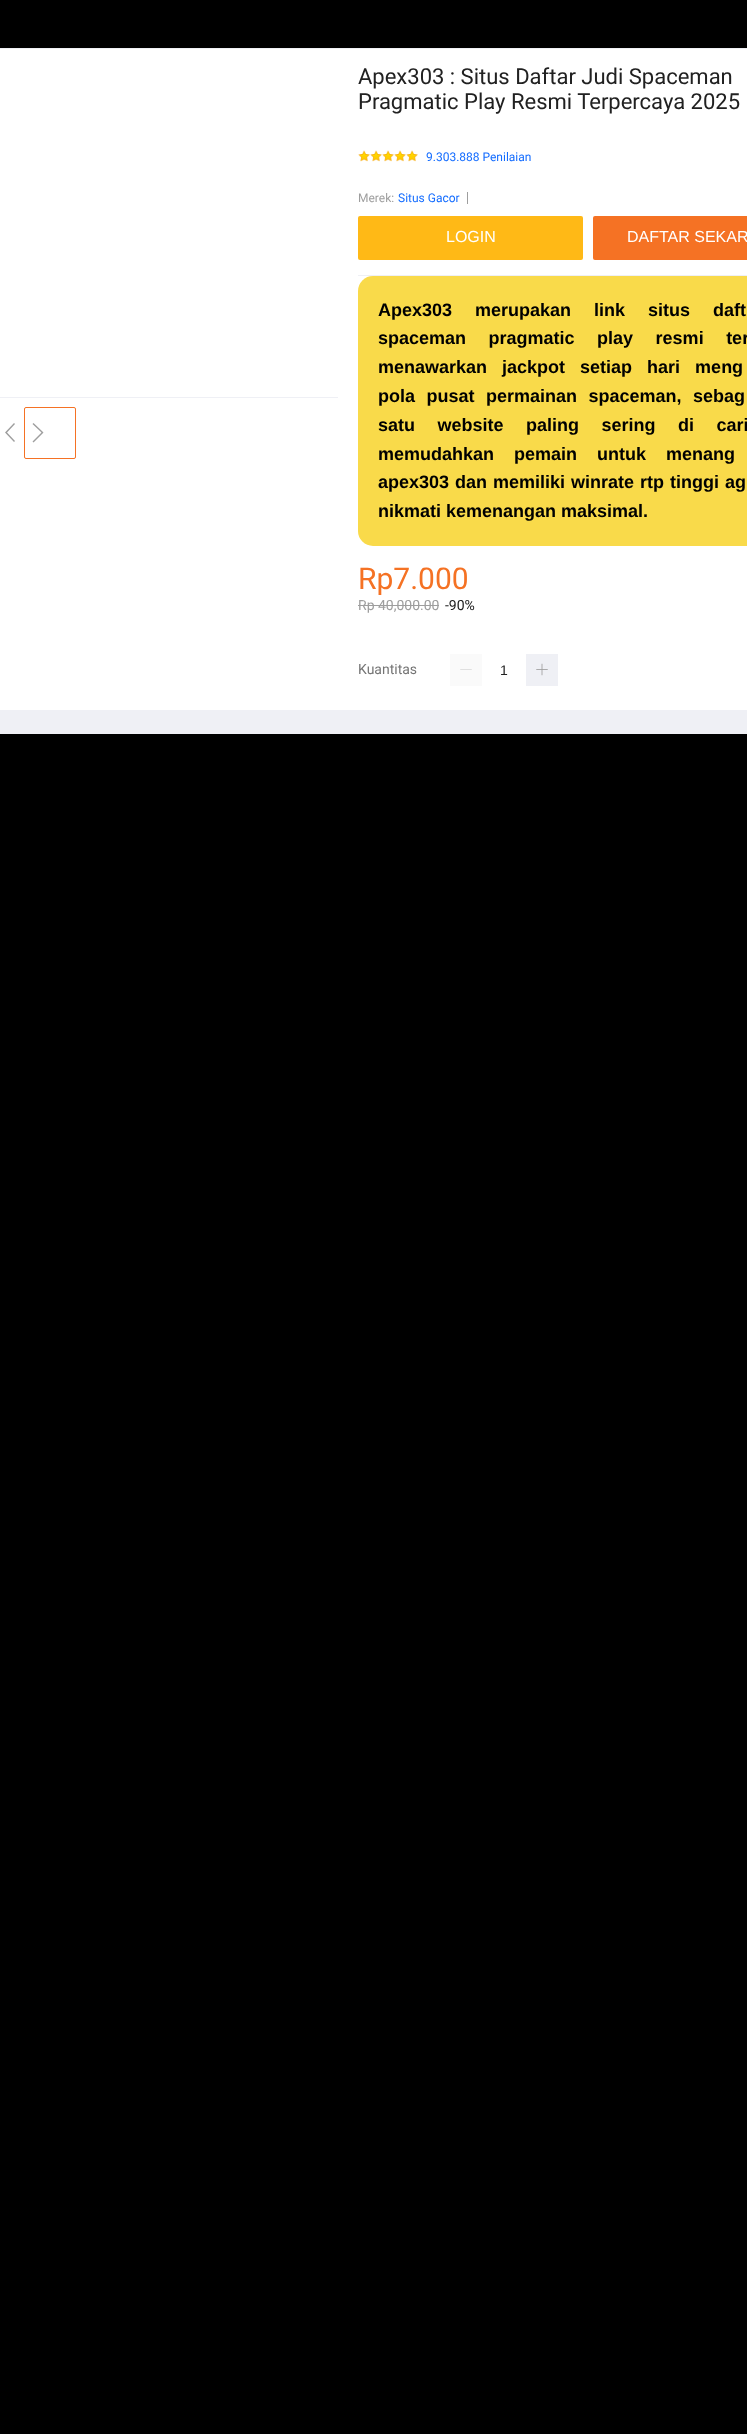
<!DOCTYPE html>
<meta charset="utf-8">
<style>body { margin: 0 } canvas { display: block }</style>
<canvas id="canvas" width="747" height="2434"></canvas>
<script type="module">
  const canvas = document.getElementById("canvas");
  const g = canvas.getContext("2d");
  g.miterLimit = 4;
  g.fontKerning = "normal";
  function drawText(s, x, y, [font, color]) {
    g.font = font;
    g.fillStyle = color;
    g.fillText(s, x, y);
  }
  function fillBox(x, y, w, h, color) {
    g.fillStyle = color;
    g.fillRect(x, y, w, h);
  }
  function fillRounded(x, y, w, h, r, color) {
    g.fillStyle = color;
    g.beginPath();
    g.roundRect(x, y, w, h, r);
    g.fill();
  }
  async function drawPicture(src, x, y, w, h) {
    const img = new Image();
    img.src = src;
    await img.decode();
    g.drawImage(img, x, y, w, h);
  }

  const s1 = ["22px Roboto", "#212121"];
  const s2 = ["12px Roboto", "#136CFF"];
  const s3 = ["12px Roboto", "#9E9E9E"];
  const s4 = ["16px Liberation Sans", "#FFFFFF"];
  const s5 = ["bold 18px Liberation Sans", "#000000"];
  const s6 = ["30px Roboto", "#F57224"];
  const s7 = ["14px Roboto", "#9E9E9E"];
  const s8 = ["14px Roboto", "#212121"];
  const s9 = ["14px Roboto", "#757575"];
  const s10 = ["14px Liberation Sans", "#212121"];

  fillBox(0, 0, 747, 2434, "#000000");
  fillBox(0, 48, 747, 1, "#EFF0F5");
  fillBox(0, 710, 747, 24, "#EFF0F5");
  fillBox(0, 49, 747, 661, "#FFFFFF");
  fillBox(0, 397, 338, 1, "#EFF0F5");
  g.beginPath();
  g.roundRect(24.5, 407.5, 51, 51, 1.5);
  g.strokeStyle = "#F57224";
  g.stroke();
  g.fillStyle = "#9E9E9E";
  g.beginPath();
  g.moveTo(15, 441);
  g.lineTo(7, 432.5);
  g.lineTo(15, 424);
  g.lineTo(14, 423);
  g.lineTo(5, 432.5);
  g.lineTo(14, 442);
  g.closePath();
  g.moveTo(33.5, 442.5);
  g.lineTo(32.5, 441.5);
  g.lineTo(41.5, 432.5);
  g.lineTo(32.5, 424);
  g.lineTo(33.5, 423);
  g.lineTo(43.5, 432.5);
  g.closePath();
  g.fill();
  drawText("Apex303 : Situs Daftar Judi Spaceman", 358, 84, s1);
  drawText("Pragmatic Play Resmi Terpercaya 2025", 358, 109, s1);
  await drawPicture("pic1.png", 358, 150, 12, 12);
  await drawPicture("pic1.png", 370, 150, 12, 12);
  await drawPicture("pic1.png", 382, 150, 12, 12);
  await drawPicture("pic1.png", 394, 150, 12, 12);
  await drawPicture("pic1.png", 406, 150, 12, 12);
  drawText("9.303.888 Penilaian", 426, 161, s2);
  fillBox(358, 275, 389, 1, "#EFF0F5");
  drawText("Merek:", 358, 202, s3);
  drawText("Situs Gacor", 398, 202, s2);
  fillBox(467, 192, 1, 12, "#9E9E9E");
  fillRounded(358, 216, 225, 44, 2, "#FFB916");
  drawText("LOGIN", 446, 242, s4);
  fillRounded(593, 216, 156, 44, 2, "#F57224");
  drawText("DAFTAR SEKAR", 627, 242, s4);
  fillRounded(358, 276, 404, 270, 15, "#F9DA4A");
  g.wordSpacing = "18px";
  drawText("Apex303 merupakan link situs daft", 378, 316, s5);
  g.wordSpacing = "17.5px";
  drawText("spaceman pragmatic play resmi ter", 378, 344, s5);
  g.wordSpacing = "10px";
  drawText("menawarkan jackpot setiap hari meng", 378, 373, s5);
  g.wordSpacing = "6.5px";
  drawText("pola pusat permainan spaceman, sebag", 378, 402, s5);
  g.wordSpacing = "17.5px";
  drawText("satu website paling sering di cari", 378, 431, s5);
  g.wordSpacing = "15px";
  drawText("memudahkan pemain untuk menang", 378, 460, s5);
  g.wordSpacing = "1px";
  drawText("apex303 dan memiliki winrate rtp tinggi ag", 378, 488, s5);
  g.wordSpacing = "0px";
  drawText("nikmati kemenangan maksimal.", 378, 517, s5);
  drawText("Rp7.000", 358, 589, s6);
  drawText("Rp 40,000.00", 358, 610, s7);
  fillBox(358, 605, 81, 1, "#9E9E9E");
  drawText("-90%", 445, 610, s8);
  drawText("Kuantitas", 358, 674, s9);
  fillBox(450, 654, 32, 32, "#FAFAFA");
  await drawPicture("pic2.png", 460, 669, 12, 1);
  fillBox(526, 654, 32, 32, "#EFF0F5");
  await drawPicture("pic3.png", 536, 663, 12, 13);
  drawText("1", 500, 675, s10);
</script>
